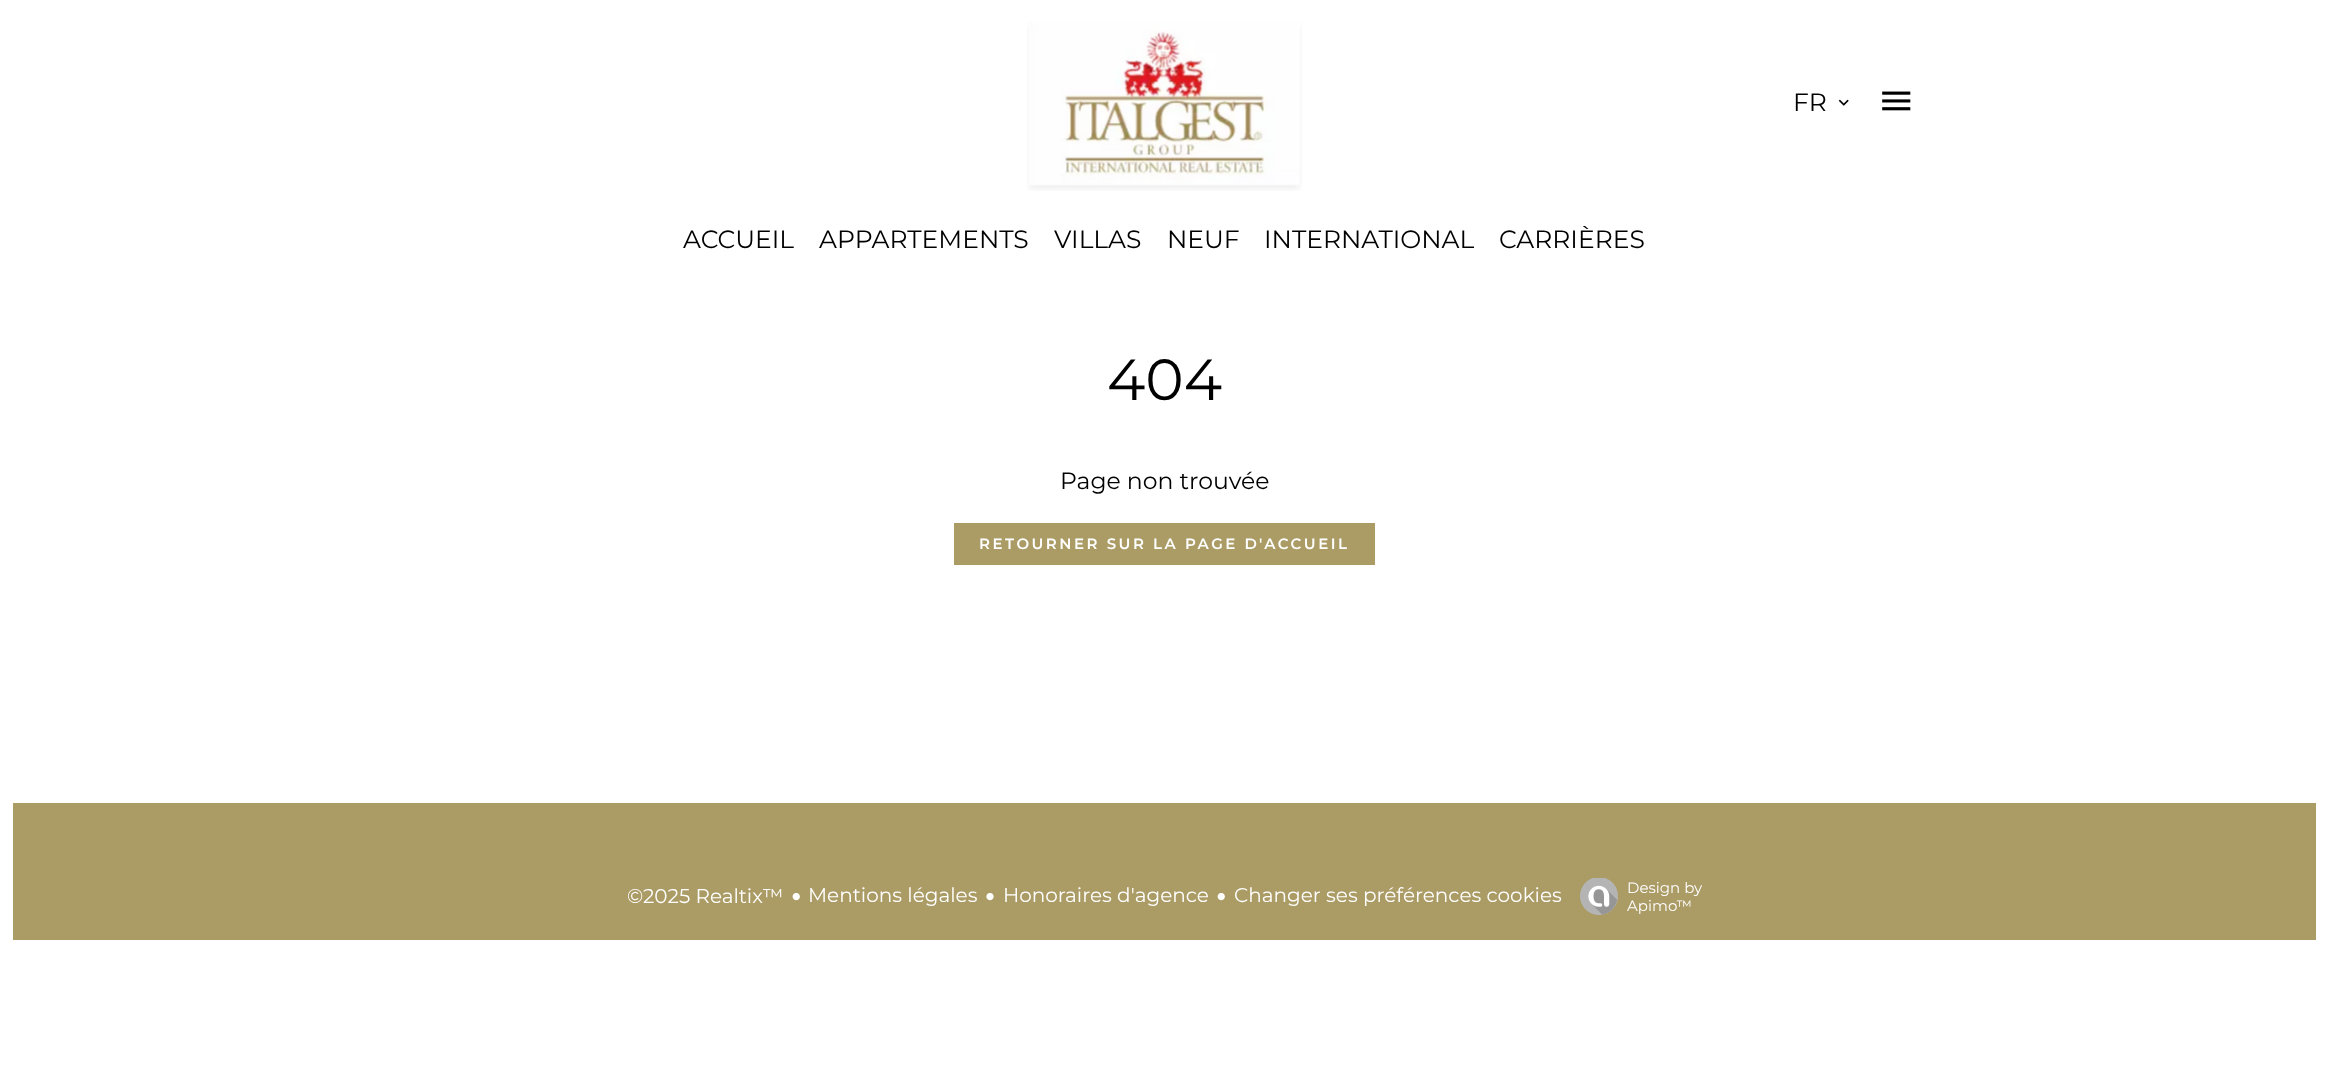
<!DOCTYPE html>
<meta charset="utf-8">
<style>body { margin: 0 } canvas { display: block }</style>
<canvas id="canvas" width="2328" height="1077"></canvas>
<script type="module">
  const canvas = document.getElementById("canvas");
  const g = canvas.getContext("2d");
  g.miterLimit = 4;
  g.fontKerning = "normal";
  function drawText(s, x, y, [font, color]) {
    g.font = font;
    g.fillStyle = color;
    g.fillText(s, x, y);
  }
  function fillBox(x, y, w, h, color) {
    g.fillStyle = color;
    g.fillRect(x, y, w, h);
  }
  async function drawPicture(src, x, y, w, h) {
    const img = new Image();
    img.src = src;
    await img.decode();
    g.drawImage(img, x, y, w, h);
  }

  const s1 = ["25px Montserrat", "#000000"];
  const s2 = ["58px Montserrat", "#000000"];
  const s3 = ["23.5px Montserrat", "#000000"];
  const s4 = ["600 15px Montserrat", "#FFFFFF"];
  const s5 = ["20px Montserrat", "#FFFFFF"];
  const s6 = ["15px Montserrat", "#FFFFFF"];

  fillBox(0, 0, 2328, 1077, "#FFFFFF");
  await drawPicture("pic1.png", 1027, 21, 275, 170);
  drawText("FR", 1793, 111, s1);
  await drawPicture("pic2.png", 1838, 99, 11, 7);
  await drawPicture("pic3.png", 1882, 91, 29, 20);
  drawText("ACCUEIL", 683, 248, s1);
  drawText("APPARTEMENTS", 819, 248, s1);
  drawText("VILLAS", 1054, 248, s1);
  drawText("NEUF", 1167, 248, s1);
  drawText("INTERNATIONAL", 1264, 248, s1);
  drawText("CARRIÈRES", 1499, 248, s1);
  drawText("404", 1107, 400, s2);
  drawText("Page non trouvée", 1060, 489, s3);
  fillBox(954, 523, 421, 42, "#AB9B65");
  g.letterSpacing = "2.5px";
  drawText("RETOURNER SUR LA PAGE D'ACCUEIL", 979, 549, s4);
  fillBox(13, 803, 2303, 137, "#AB9B65");
  g.letterSpacing = "0px";
  drawText("©2025 Realtix™", 627, 903, s5);
  await drawPicture("pic4.png", 792, 892, 8, 9);
  drawText("Mentions légales", 808, 902, s5);
  await drawPicture("pic5.png", 986, 893, 8, 8);
  drawText("Honoraires d'agence", 1003, 902, s5);
  await drawPicture("pic4.png", 1217, 892, 8, 9);
  drawText("Changer ses préférences cookies", 1234, 902, s5);
  await drawPicture("pic6.png", 1580, 878, 38, 37);
  drawText("Design by", 1627, 893, s6);
  drawText("Apimo™", 1627, 911, s6);
</script>
